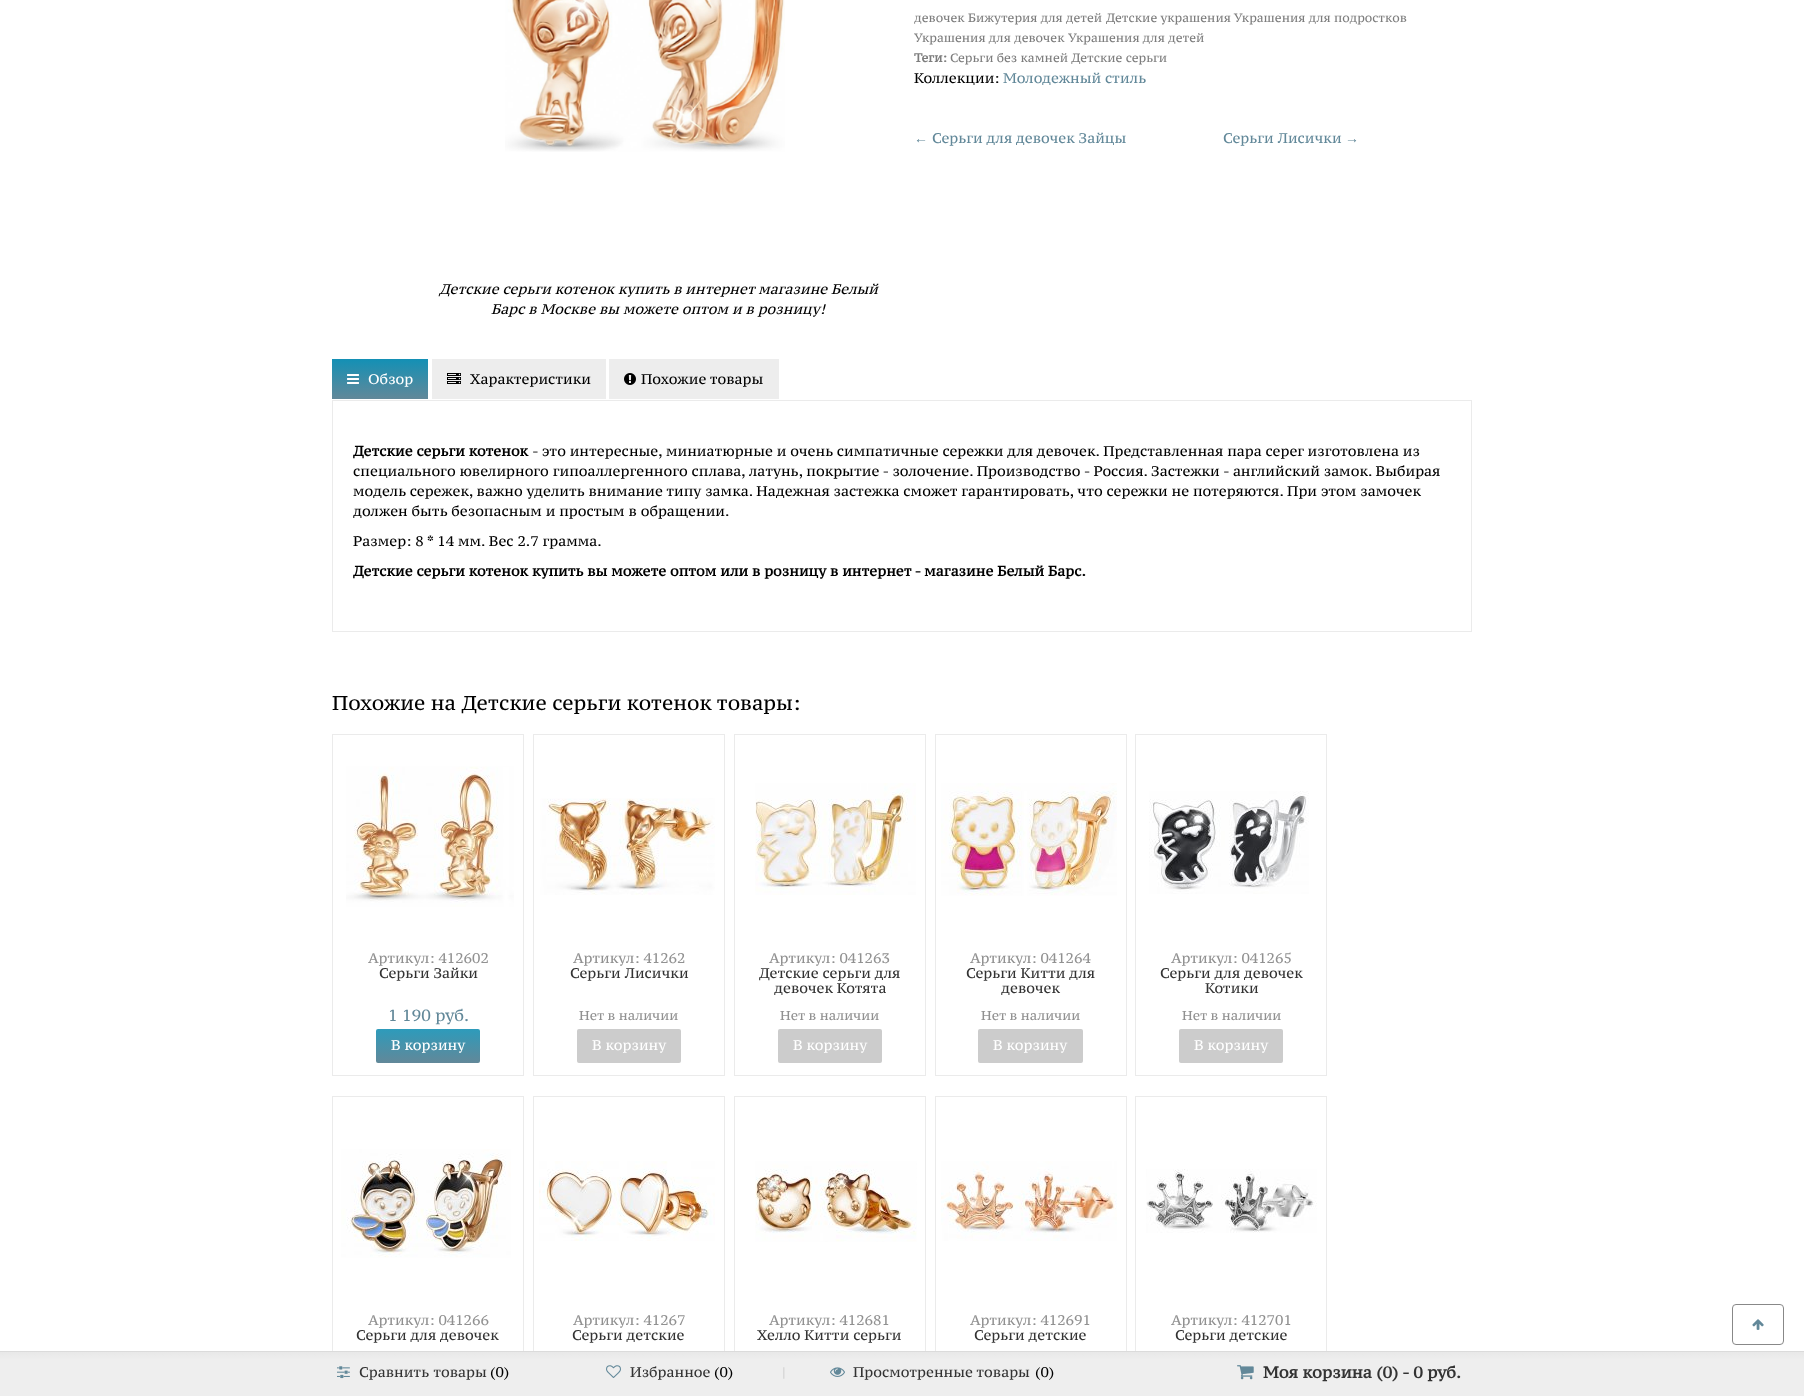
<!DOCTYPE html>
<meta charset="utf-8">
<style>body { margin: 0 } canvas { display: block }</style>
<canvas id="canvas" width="1804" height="1396"></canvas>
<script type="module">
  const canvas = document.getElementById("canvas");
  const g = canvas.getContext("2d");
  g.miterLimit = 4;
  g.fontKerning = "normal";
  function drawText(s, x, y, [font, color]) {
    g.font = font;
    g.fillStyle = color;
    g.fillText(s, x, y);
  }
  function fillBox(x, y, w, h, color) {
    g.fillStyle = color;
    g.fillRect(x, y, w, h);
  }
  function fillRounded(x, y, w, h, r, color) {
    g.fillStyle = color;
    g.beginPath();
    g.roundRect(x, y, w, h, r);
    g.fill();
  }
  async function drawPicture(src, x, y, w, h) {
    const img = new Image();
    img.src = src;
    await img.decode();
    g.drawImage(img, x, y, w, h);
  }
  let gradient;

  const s1 = ["12px PT Serif Caption", "#7D7D7D"];
  const s2 = ["bold 12px PT Serif Caption", "#7D7D7D"];
  const s3 = ["14px PT Serif Caption", "#000000"];
  const s4 = ["14px PT Serif Caption", "#628899"];
  const s5 = ["14px Liberation Serif", "#628899"];
  const s6 = ["italic 14px PT Serif Caption", "#000000"];
  const s7 = ["14px PT Serif Caption", "#FFFFFF"];
  const s8 = ["bold 14px PT Serif Caption", "#000000"];
  const s9 = ["20px PT Serif Caption", "#000000"];
  const s10 = ["14px PT Serif Caption", "#919191"];
  const s11 = ["14px PT Serif Caption", "#333333"];
  const s12 = ["16px PT Serif Caption", "#628899"];
  const s13 = ["13px PT Serif Caption", "#919191"];
  const s14 = ["14px PT Serif Caption", "#CCCCCC"];
  const s15 = ["bold 16px PT Serif Caption", "#333333"];

  fillBox(0, 0, 1804, 1396, "#FFFFFF");
  drawText("девочек", 914, 22, s1);
  drawText("Бижутерия для детей", 968, 22, s1);
  drawText("Детские украшения Украшения для подростков", 1106, 22, s1);
  drawText("Украшения для девочек", 914, 42, s1);
  drawText("Украшения для детей", 1068, 42, s1);
  drawText("Теги:", 914, 62, s2);
  drawText("Серьги без камней Детские серьги", 950, 62, s1);
  drawText("Коллекции:", 914, 83, s3);
  drawText("Молодежный стиль", 1003, 83, s4);
  drawText("←", 914, 143, s5);
  drawText("Серьги для девочек Зайцы", 932, 143, s4);
  drawText("Серьги Лисички", 1223, 143, s4);
  drawText("→", 1345, 143, s5);
  await drawPicture("pic1.png", 505, 0, 280, 152);
  drawText("Детские серьги котенок купить в интернет магазине Белый", 439, 294, s6);
  drawText("Барс в Москве вы можете оптом и в розницу!", 491, 314, s6);
  gradient = g.createLinearGradient(380, 359, 380, 399);
  gradient.addColorStop(0, "#1390B5");
  gradient.addColorStop(1, "#628899");
  g.fillStyle = gradient;
  g.fillRect(332, 359, 96, 40);
  await drawPicture("pic2.png", 347, 374, 12, 10);
  drawText("Обзор", 368, 384, s7);
  fillBox(432, 359, 174, 40, "#EDEDED");
  await drawPicture("pic3.png", 447, 373, 14, 11);
  drawText("Характеристики", 470, 384, s3);
  fillBox(609, 359, 170, 40, "#EDEDED");
  await drawPicture("pic4.png", 624, 373, 12, 12);
  drawText("Похожие товары", 641, 384, s3);
  g.strokeStyle = "#EBEBEB";
  g.strokeRect(332.5, 400.5, 1139, 231);
  drawText("Детские серьги котенок", 353, 456, s8);
  drawText("- это интересные, миниатюрные и очень симпатичные сережки для девочек. Представленная пара серег изготовлена из", 532, 456, s3);
  drawText("специального ювелирного гипоаллергенного сплава, латунь, покрытие - золочение. Производство - Россия. Застежки - английский замок. Выбирая", 353, 476, s3);
  drawText("модель сережек, важно уделить внимание типу замка. Надежная застежка сможет гарантировать, что сережки не потеряются. При этом замочек", 353, 496, s3);
  drawText("должен быть безопасным и простым в обращении.", 353, 516, s3);
  drawText("Размер: 8 * 14 мм. Вес 2.7 грамма.", 353, 546, s3);
  drawText("Детские серьги котенок купить вы можете оптом или в розницу в интернет - магазине Белый Барс.", 353, 576, s8);
  drawText("Похожие на Детские серьги котенок товары:", 332, 710, s9);
  g.strokeRect(332.5, 734.5, 191, 341);
  await drawPicture("pic5.png", 346, 766, 168, 141);
  drawText("Артикул: 412602", 368, 963, s10);
  drawText("Серьги Зайки", 379, 978, s11);
  drawText("1 190 руб.", 388, 1021, s12);
  gradient = g.createLinearGradient(428, 1029, 428, 1063);
  gradient.addColorStop(0, "#2D9BBB");
  gradient.addColorStop(1, "#628899");
  g.fillStyle = gradient;
  g.beginPath();
  g.roundRect(376, 1029, 104, 34, 2);
  g.fill();
  drawText("В корзину", 391, 1050, s7);
  g.strokeRect(533.5, 734.5, 191, 341);
  await drawPicture("pic6.png", 540, 798, 175, 97);
  drawText("Артикул: 41262", 573, 963, s10);
  drawText("Серьги Лисички", 570, 978, s11);
  drawText("Нет в наличии", 579, 1020, s13);
  fillRounded(577, 1029, 104, 34, 2, "#CCCCCC");
  drawText("В корзину", 592, 1050, s7);
  g.strokeRect(734.5, 734.5, 191, 341);
  await drawPicture("pic7.png", 755, 783, 161, 112);
  drawText("Артикул: 041263", 769, 963, s10);
  drawText("Детские серьги для", 759, 978, s11);
  drawText("девочек Котята", 774, 993, s11);
  drawText("Нет в наличии", 780, 1020, s13);
  fillRounded(778, 1029, 104, 34, 2, "#CCCCCC");
  drawText("В корзину", 793, 1050, s7);
  g.strokeRect(935.5, 734.5, 191, 341);
  await drawPicture("pic8.png", 941, 783, 176, 113);
  drawText("Артикул: 041264", 970, 963, s10);
  drawText("Серьги Китти для", 966, 978, s11);
  drawText("девочек", 1001, 993, s11);
  drawText("Нет в наличии", 981, 1020, s13);
  fillRounded(978, 1029, 105, 34, 2, "#CCCCCC");
  drawText("В корзину", 993, 1050, s7);
  g.strokeRect(1135.5, 734.5, 191, 341);
  await drawPicture("pic9.png", 1149, 791, 160, 103);
  drawText("Артикул: 041265", 1171, 963, s10);
  drawText("Серьги для девочек", 1160, 978, s11);
  drawText("Котики", 1205, 993, s11);
  drawText("Нет в наличии", 1182, 1020, s13);
  fillRounded(1179, 1029, 104, 34, 2, "#CCCCCC");
  drawText("В корзину", 1194, 1050, s7);
  g.strokeRect(332.5, 1096.5, 191, 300);
  await drawPicture("pic10.png", 341, 1149, 170, 109);
  drawText("Артикул: 041266", 368, 1325, s10);
  drawText("Серьги для девочек", 356, 1340, s11);
  g.strokeRect(533.5, 1096.5, 191, 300);
  await drawPicture("pic11.png", 539, 1161, 176, 80);
  drawText("Артикул: 41267", 573, 1325, s10);
  drawText("Серьги детские", 572, 1340, s11);
  g.strokeRect(734.5, 1096.5, 191, 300);
  await drawPicture("pic12.png", 755, 1161, 162, 81);
  drawText("Артикул: 412681", 769, 1325, s10);
  drawText("Хелло Китти серьги", 757, 1340, s11);
  g.strokeRect(935.5, 1096.5, 191, 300);
  await drawPicture("pic13.png", 941, 1161, 176, 80);
  drawText("Артикул: 412691", 970, 1325, s10);
  drawText("Серьги детские", 974, 1340, s11);
  g.strokeRect(1135.5, 1096.5, 191, 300);
  await drawPicture("pic14.png", 1146, 1169, 171, 64);
  drawText("Артикул: 412701", 1171, 1325, s10);
  drawText("Серьги детские", 1175, 1340, s11);
  g.beginPath();
  g.roundRect(1732.5, 1304.5, 51, 40, 3.5);
  g.strokeStyle = "#888888";
  g.stroke();
  await drawPicture("pic15.png", 1752, 1319, 12, 11);
  gradient = g.createLinearGradient(902, 1352, 902, 1396);
  gradient.addColorStop(0, "#E8E8E8");
  gradient.addColorStop(0.18, "#EEEEEE");
  g.fillStyle = gradient;
  g.fillRect(0, 1352, 1804, 44);
  fillBox(0, 1351, 1804, 1, "#DBDBDB");
  await drawPicture("pic16.png", 337, 1366, 13, 13);
  g.wordSpacing = "1px";
  drawText("Сравнить товары", 359, 1377, s11);
  g.wordSpacing = "0px";
  drawText("(0)", 490, 1377, s3);
  await drawPicture("pic17.png", 606, 1365, 15, 13);
  drawText("Избранное", 630, 1377, s11);
  drawText("(0)", 714, 1377, s3);
  drawText("|", 782, 1377, s14);
  await drawPicture("pic18.png", 830, 1367, 15, 10);
  drawText("Просмотренные товары", 853, 1377, s11);
  drawText("(0)", 1035, 1377, s3);
  await drawPicture("pic19.png", 1237, 1365, 17, 15);
  drawText("Моя корзина (0) - 0 руб.", 1263, 1378, s15);
</script>
